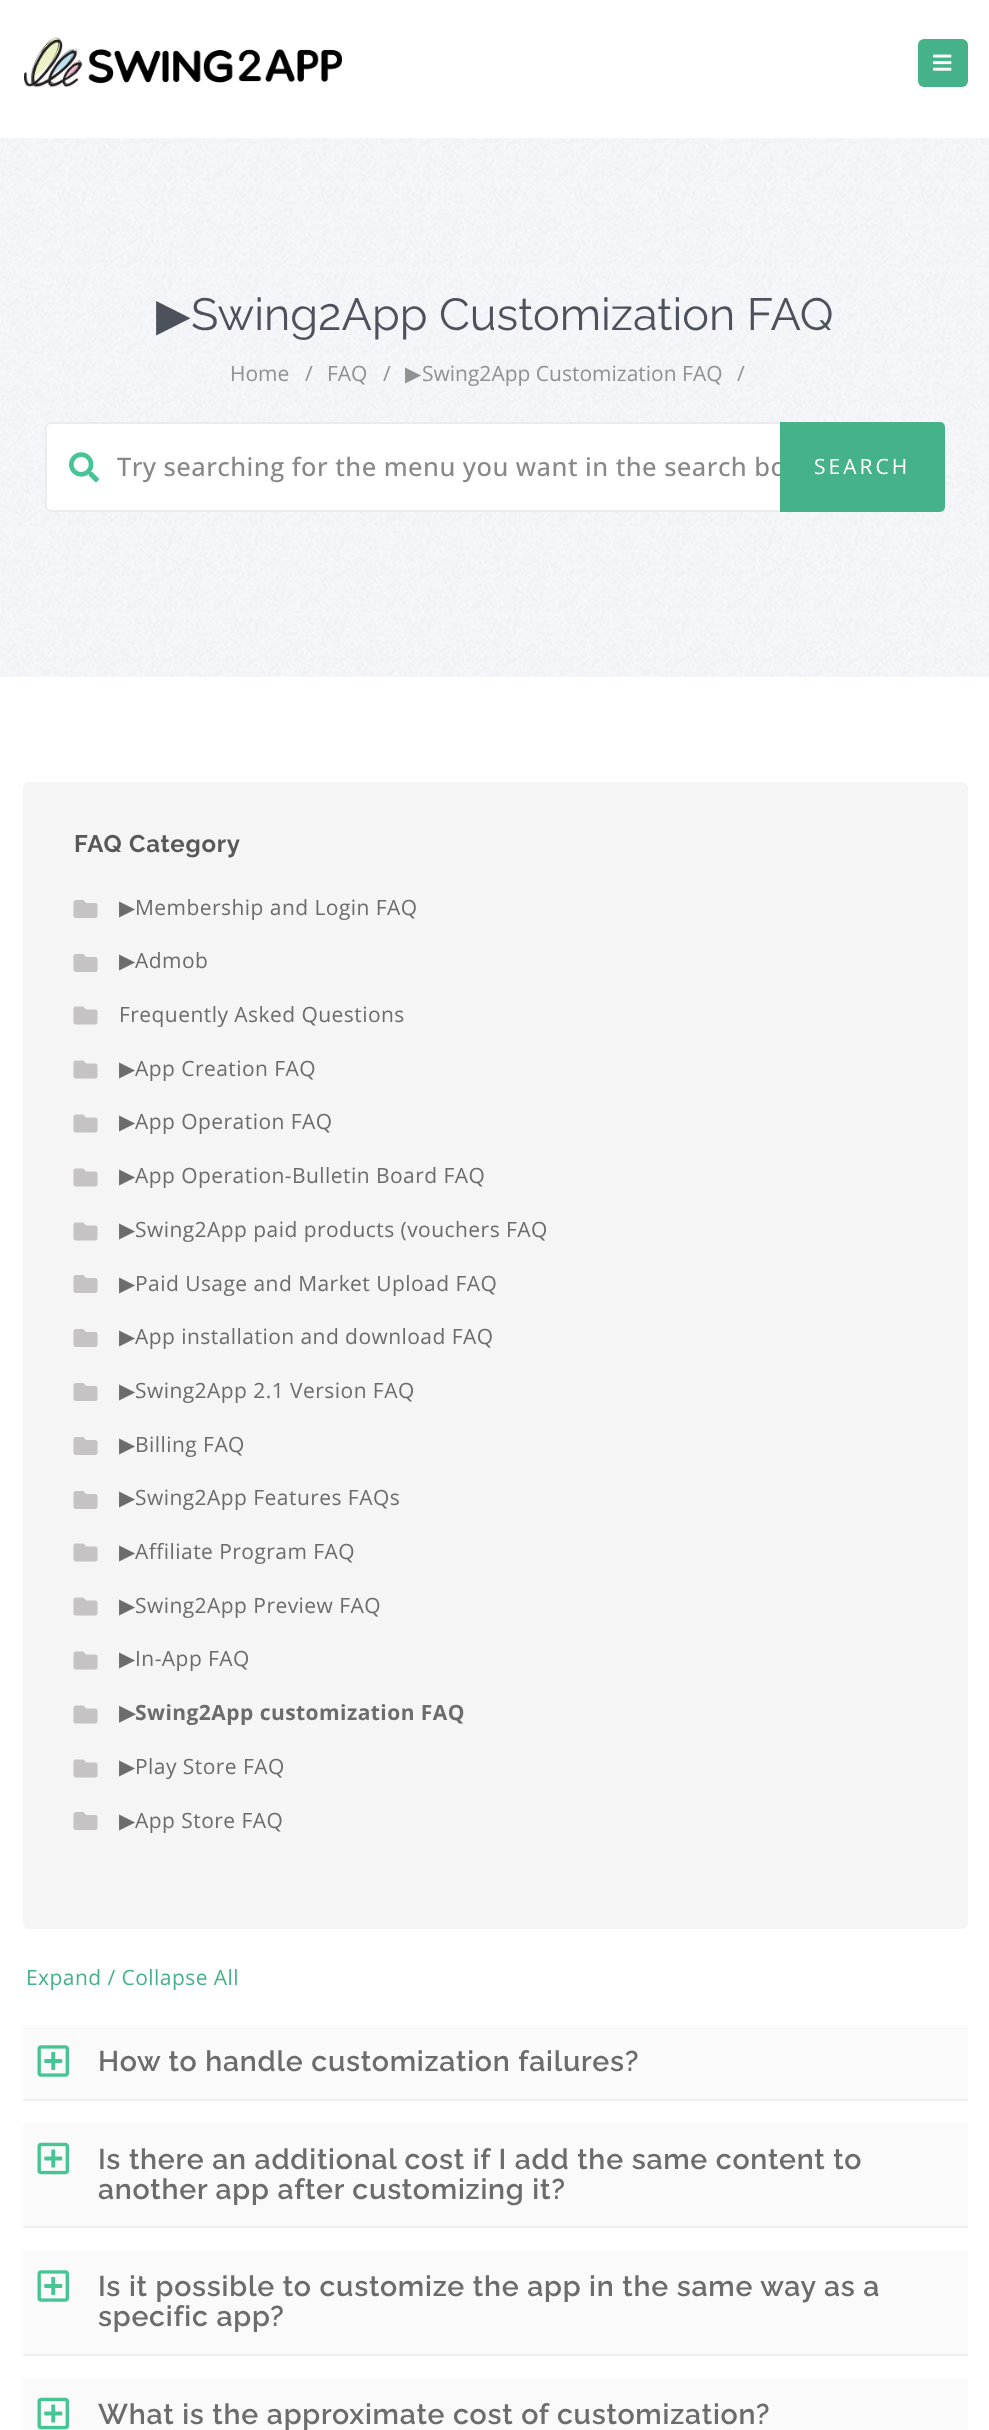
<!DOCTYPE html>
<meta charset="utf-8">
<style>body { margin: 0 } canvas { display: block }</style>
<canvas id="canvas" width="989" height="2430"></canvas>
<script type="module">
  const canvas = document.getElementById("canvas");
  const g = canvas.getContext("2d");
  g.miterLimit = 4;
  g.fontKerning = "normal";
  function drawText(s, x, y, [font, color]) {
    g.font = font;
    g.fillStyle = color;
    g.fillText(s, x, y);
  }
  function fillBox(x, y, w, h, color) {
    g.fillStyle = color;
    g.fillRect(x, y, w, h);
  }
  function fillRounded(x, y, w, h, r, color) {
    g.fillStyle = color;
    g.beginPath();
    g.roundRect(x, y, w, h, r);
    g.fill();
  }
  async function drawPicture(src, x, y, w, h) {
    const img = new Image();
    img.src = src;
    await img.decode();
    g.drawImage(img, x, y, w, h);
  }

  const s1 = ["45px DejaVu Sans", "#4D515C"];
  const s2 = ["45px Raleway", "#4D515C"];
  const s3 = ["21px Open Sans", "#919191"];
  const s4 = ["21px DejaVu Sans", "#919191"];
  const s5 = ["500 25.5px Open Sans", "#888888"];
  const s6 = ["21px Open Sans", "#FFFFFF"];
  const s7 = ["bold 24px Raleway", "#585858"];
  const s8 = ["21px DejaVu Sans", "#6C6C6C"];
  const s9 = ["21px Open Sans", "#6C6C6C"];
  const s10 = ["bold 21px DejaVu Sans", "#6C6C6C"];
  const s11 = ["bold 21px Open Sans", "#6C6C6C"];
  const s12 = ["21px Open Sans", "#46B289"];
  const s13 = ["600 28.5px Raleway", "#6C6C6C"];

  fillBox(0, 0, 989, 2430, "#FFFFFF");
  await drawPicture("pic1.png", 24, 37, 318, 50);
  fillRounded(918, 39, 50, 48, 6, "#46B289");
  await drawPicture("pic2.png", 933, 54, 19, 17);
  fillBox(0, 676, 989, 1, "#F7F7F7");
  await drawPicture("pic3.png", 0, 138, 989, 539);
  drawText("▶", 156, 330, s1);
  drawText("Swing2App Customization FAQ", 191, 330, s2);
  drawText("Home", 230, 381, s3);
  drawText("/", 305, 381, s3);
  drawText("FAQ", 327, 381, s3);
  drawText("/", 383, 381, s3);
  drawText("▶", 405, 381, s4);
  drawText("Swing2App Customization FAQ", 422, 381, s3);
  drawText("/", 737, 381, s3);
  fillRounded(45, 422, 900, 90, 6, "#FFFFFF");
  g.beginPath();
  g.roundRect(46, 423, 898, 88, 5);
  g.strokeStyle = "rgba(233, 233, 233, 0.9)";
  g.lineWidth = 2;
  g.stroke();
  await drawPicture("pic4.png", 69, 452, 30, 31);
  g.letterSpacing = "0.45px";
  drawText("Try searching for the menu you want in the search bo", 117, 476, s5);
  g.fillStyle = "#46B289";
  g.beginPath();
  g.roundRect(780, 422, 165, 90, [0, 5, 5, 0]);
  g.fill();
  g.letterSpacing = "3px";
  drawText("SEARCH", 814, 474, s6);
  fillRounded(23, 782, 945, 1147, 6, "#F5F5F5");
  g.letterSpacing = "0.75px";
  drawText("FAQ Category", 74, 852, s7);
  await drawPicture("pic5.png", 73, 900, 25, 18);
  g.letterSpacing = "0.45px";
  drawText("▶", 119, 915, s8);
  drawText("Membership and Login FAQ", 135, 915, s9);
  await drawPicture("pic5.png", 73, 954, 25, 18);
  drawText("▶", 119, 968, s8);
  drawText("Admob", 135, 968, s9);
  await drawPicture("pic6.png", 73, 1006, 25, 19);
  drawText("Frequently Asked Questions", 119, 1022, s9);
  await drawPicture("pic6.png", 73, 1060, 25, 19);
  drawText("▶", 119, 1076, s8);
  drawText("App Creation FAQ", 135, 1076, s9);
  await drawPicture("pic6.png", 73, 1114, 25, 19);
  drawText("▶", 119, 1129, s8);
  drawText("App Operation FAQ", 135, 1129, s9);
  await drawPicture("pic6.png", 73, 1168, 25, 19);
  drawText("▶", 119, 1183, s8);
  drawText("App Operation-Bulletin Board FAQ", 135, 1183, s9);
  await drawPicture("pic6.png", 73, 1222, 25, 19);
  drawText("▶", 119, 1237, s8);
  drawText("Swing2App paid products (vouchers FAQ", 135, 1237, s9);
  await drawPicture("pic5.png", 73, 1275, 25, 18);
  drawText("▶", 119, 1291, s8);
  drawText("Paid Usage and Market Upload FAQ", 135, 1291, s9);
  await drawPicture("pic5.png", 73, 1329, 25, 18);
  drawText("▶", 119, 1344, s8);
  drawText("App installation and download FAQ", 135, 1344, s9);
  await drawPicture("pic5.png", 73, 1383, 25, 18);
  drawText("▶", 119, 1398, s8);
  drawText("Swing2App 2.1 Version FAQ", 135, 1398, s9);
  await drawPicture("pic5.png", 73, 1437, 25, 18);
  drawText("▶", 119, 1452, s8);
  drawText("Billing FAQ", 135, 1452, s9);
  await drawPicture("pic5.png", 73, 1491, 25, 18);
  drawText("▶", 119, 1505, s8);
  drawText("Swing2App Features FAQs", 135, 1505, s9);
  await drawPicture("pic6.png", 73, 1543, 25, 19);
  drawText("▶", 119, 1559, s8);
  drawText("Affiliate Program FAQ", 135, 1559, s9);
  await drawPicture("pic6.png", 73, 1597, 25, 19);
  drawText("▶", 119, 1613, s8);
  drawText("Swing2App Preview FAQ", 135, 1613, s9);
  await drawPicture("pic6.png", 73, 1651, 25, 19);
  drawText("▶", 119, 1666, s8);
  drawText("In-App FAQ", 135, 1666, s9);
  await drawPicture("pic6.png", 73, 1705, 25, 19);
  drawText("▶", 119, 1720, s10);
  drawText("Swing2App customization FAQ", 135, 1720, s11);
  await drawPicture("pic6.png", 73, 1759, 25, 19);
  drawText("▶", 119, 1774, s8);
  drawText("Play Store FAQ", 135, 1774, s9);
  await drawPicture("pic5.png", 73, 1812, 25, 18);
  drawText("▶", 119, 1828, s8);
  drawText("App Store FAQ", 135, 1828, s9);
  drawText("Expand / Collapse All", 26, 1985, s12);
  fillBox(23, 2025, 945, 74, "#FAFAFA");
  fillBox(23, 2099, 945, 2, "#EFEFEF");
  await drawPicture("pic7.png", 37, 2045, 32, 32);
  g.letterSpacing = "0.75px";
  drawText("How to handle customization failures?", 98, 2071, s13);
  fillBox(23, 2123, 945, 103, "#FAFAFA");
  fillBox(23, 2226, 945, 2, "#EFEFEF");
  await drawPicture("pic8.png", 37, 2142, 32, 33);
  drawText("Is there an additional cost if I add the same content to", 98, 2169, s13);
  drawText("another app after customizing it?", 98, 2199, s13);
  fillBox(23, 2250, 945, 104, "#FAFAFA");
  fillBox(23, 2354, 945, 2, "#EFEFEF");
  await drawPicture("pic7.png", 37, 2270, 32, 32);
  drawText("Is it possible to customize the app in the same way as a", 98, 2296, s13);
  drawText("specific app?", 98, 2326, s13);
  fillBox(23, 2378, 945, 52, "#FAFAFA");
  await drawPicture("pic8.png", 37, 2397, 32, 33);
  drawText("What is the approximate cost of customization?", 98, 2424, s13);
</script>
